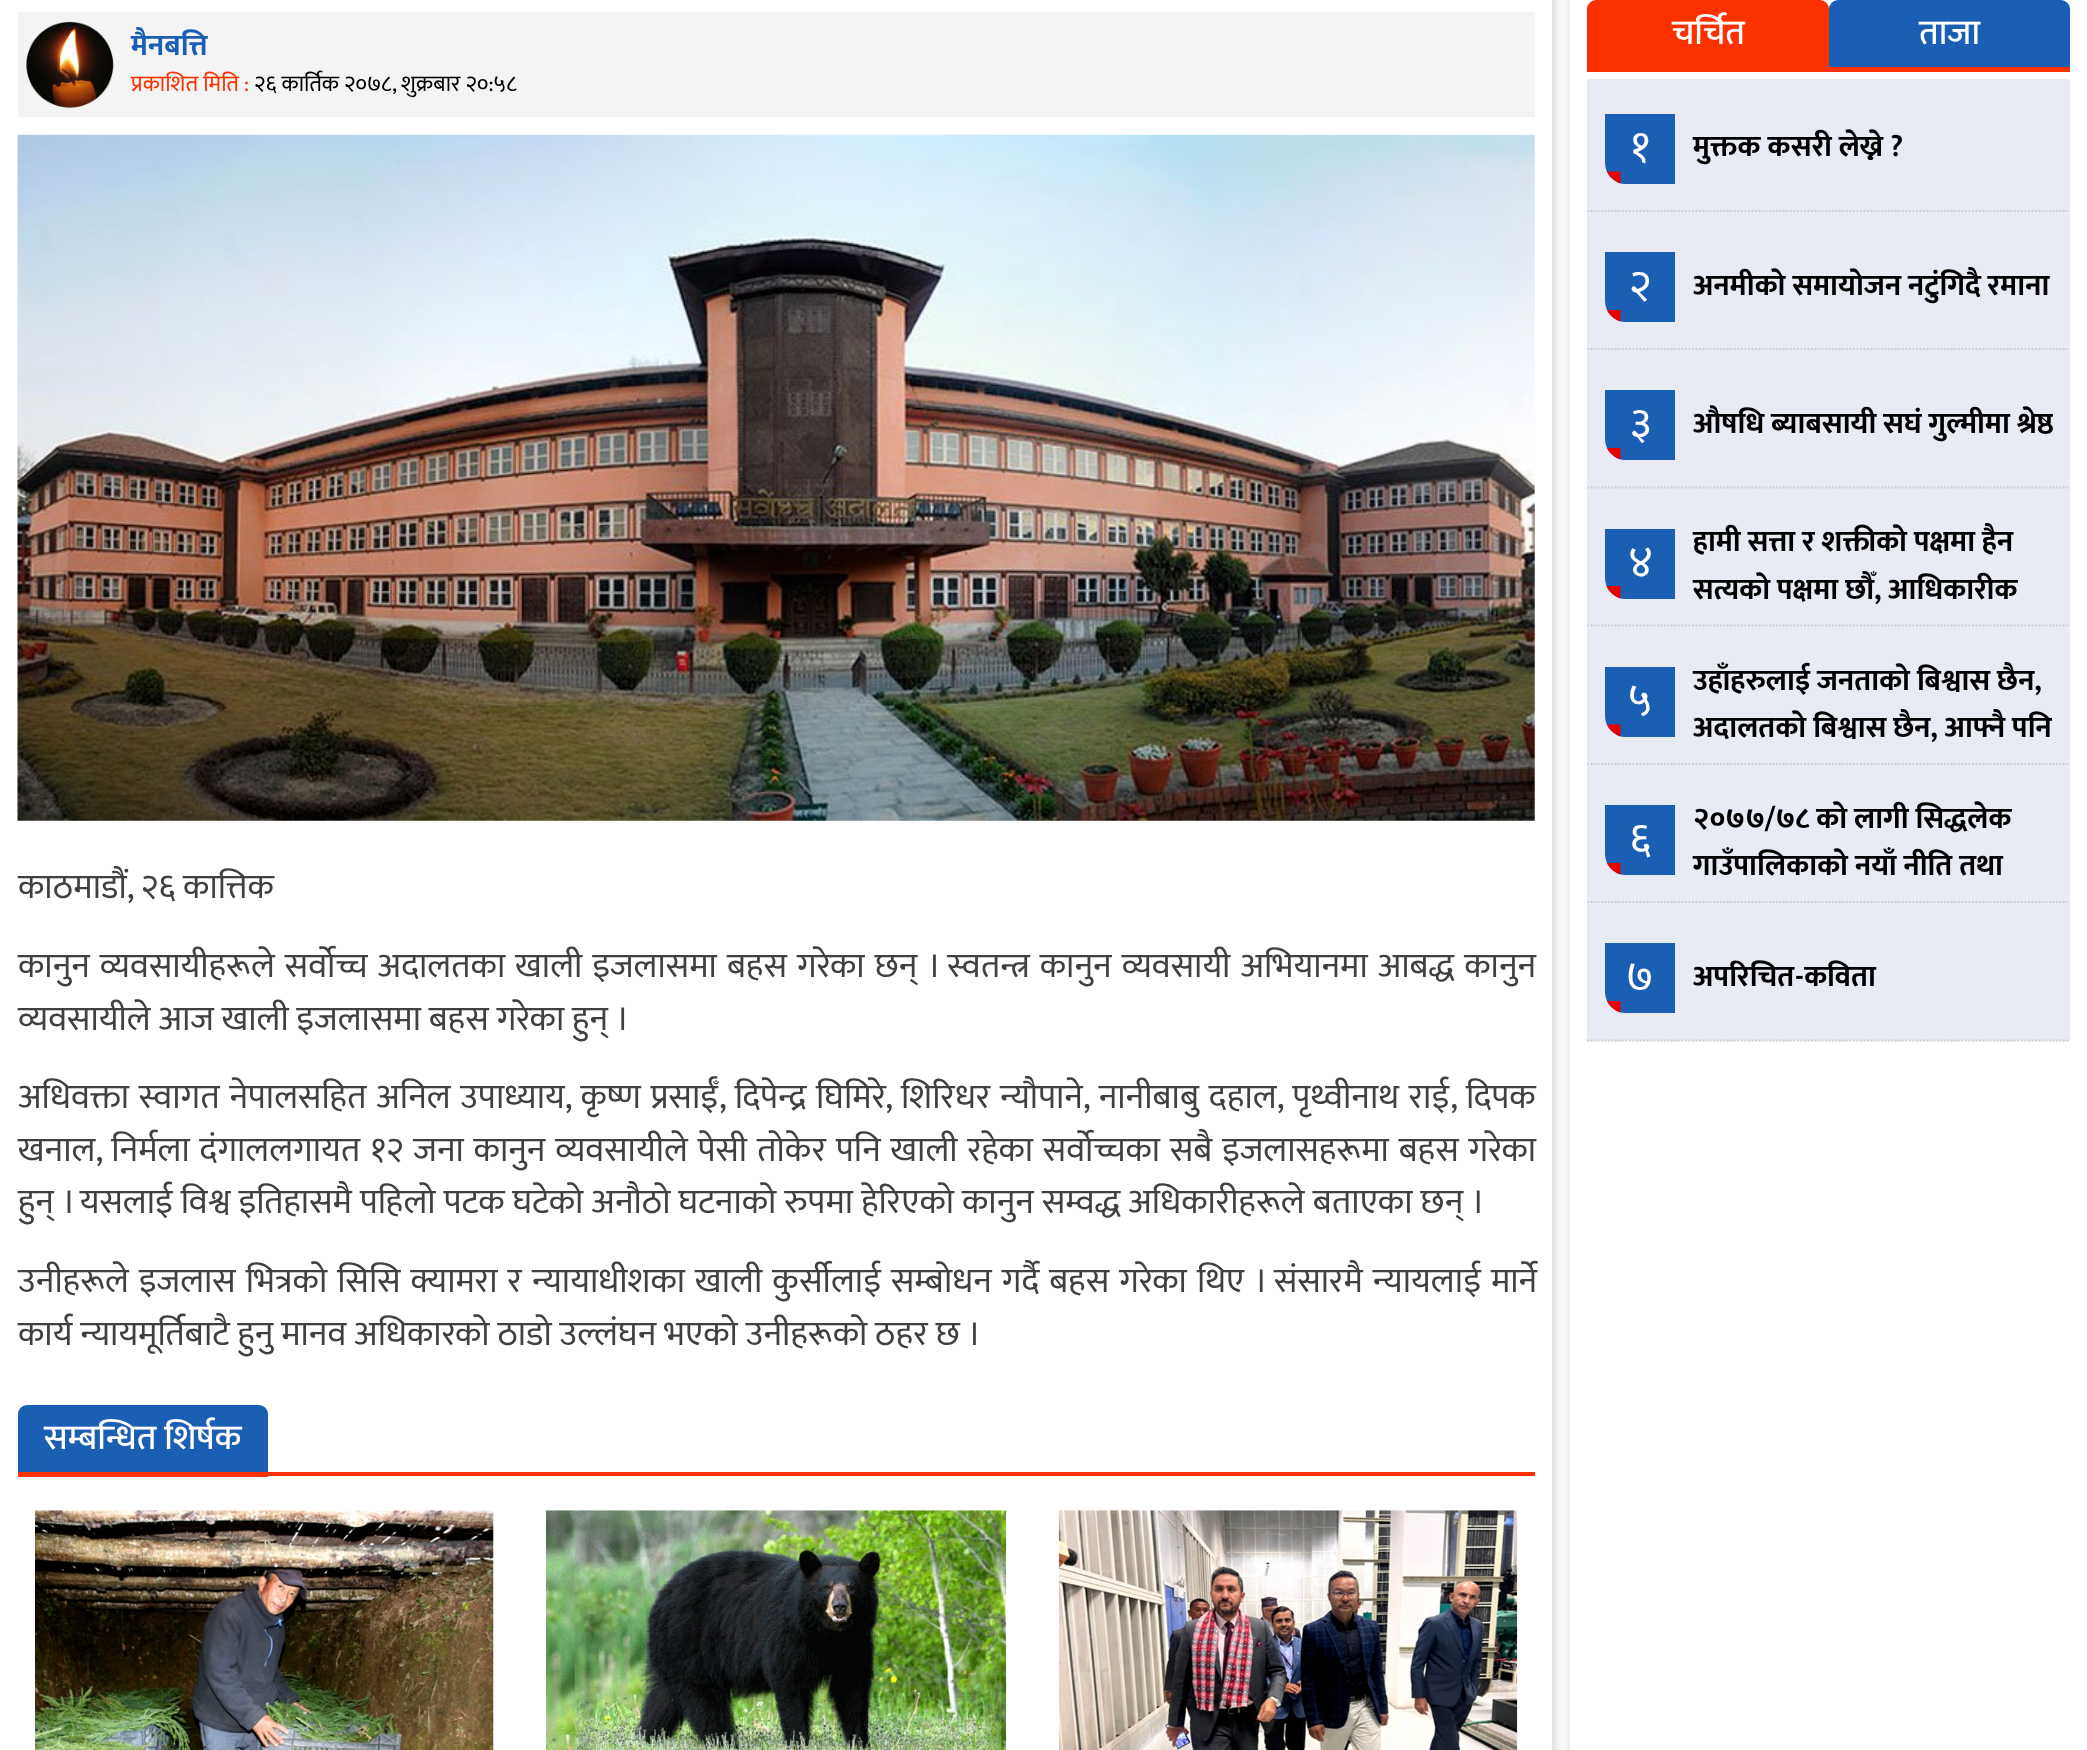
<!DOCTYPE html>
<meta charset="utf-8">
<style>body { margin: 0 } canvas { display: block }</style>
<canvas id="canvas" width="2087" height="1750"></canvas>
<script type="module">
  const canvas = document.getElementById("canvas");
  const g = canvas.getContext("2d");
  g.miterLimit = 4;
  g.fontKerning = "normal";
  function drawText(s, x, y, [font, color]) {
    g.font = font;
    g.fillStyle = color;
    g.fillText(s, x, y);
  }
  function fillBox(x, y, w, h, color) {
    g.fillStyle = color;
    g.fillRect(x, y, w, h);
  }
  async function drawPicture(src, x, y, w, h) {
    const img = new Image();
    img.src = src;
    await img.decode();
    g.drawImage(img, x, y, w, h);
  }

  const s1 = ["bold 29.75px Mukta", "#1B5FB5"];
  const s2 = ["22.75px Mukta", "#FC3100"];
  const s3 = ["22.75px Mukta", "#000000"];
  const s4 = ["35px Mukta", "#404040"];
  const s5 = ["500 35px Mukta", "#FFFFFF"];
  const s6 = ["44px Mukta", "#FFFFFF"];
  const s7 = ["bold 29.75px Mukta", "#000000"];

  fillBox(0, 0, 2087, 1750, "#FFFFFF");
  g.save();
  g.beginPath();
  g.rect(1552, 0, 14, 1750);
  g.clip();
  g.fillStyle = "#CCCCCC";
  g.filter = "blur(6px)";
  g.beginPath();
  g.rect(2, -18, 1552, 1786);
  g.fill();
  g.filter = "none";
  g.restore();
  fillBox(18, 12, 1517, 105, "#F4F4F4");
  await drawPicture("pic1.png", 26, 21, 88, 87);
  drawText("मैनबत्ति", 131, 55, s1);
  drawText("प्रकाशित मिति :", 131, 91, s2);
  drawText("२६ कार्तिक २०७८, शुक्रबार २०:५८", 254, 91, s3);
  await drawPicture("pic2.png", 17, 134, 1518, 687);
  drawText("काठमाडौं, २६ कात्तिक", 18, 898, s4);
  g.wordSpacing = "2.25px";
  drawText("कानुन व्यवसायीहरूले सर्वोच्च अदालतका खाली इजलासमा बहस गरेका छन् । स्वतन्त्र कानुन व्यवसायी अभियानमा आबद्ध कानुन", 18, 977, s4);
  g.wordSpacing = "0px";
  drawText("व्यवसायीले आज खाली इजलासमा बहस गरेका हुन् ।", 18, 1030, s4);
  g.wordSpacing = "1.9px";
  drawText("अधिवक्ता स्वागत नेपालसहित अनिल उपाध्याय, कृष्ण प्रसाईँ, दिपेन्द्र घिमिरे, शिरिधर न्यौपाने, नानीबाबु दहाल, पृथ्वीनाथ राई, दिपक", 18, 1108, s4);
  g.wordSpacing = "2px";
  drawText("खनाल, निर्मला दंगाललगायत १२ जना कानुन व्यवसायीले पेसी तोकेर पनि खाली रहेका सर्वोच्चका सबै इजलासहरूमा बहस गरेका", 18, 1161, s4);
  g.wordSpacing = "0.25px";
  drawText("हुन् । यसलाई विश्व इतिहासमै पहिलो पटक घटेको अनौठो घटनाको रुपमा हेरिएको कानुन सम्वद्ध अधिकारीहरूले बताएका छन् ।", 18, 1213, s4);
  g.wordSpacing = "2.25px";
  drawText("उनीहरूले इजलास भित्रको सिसि क्यामरा र न्यायाधीशका खाली कुर्सीलाई सम्बोधन गर्दै बहस गरेका थिए । संसारमै न्यायलाई मार्ने", 18, 1292, s4);
  g.wordSpacing = "0px";
  drawText("कार्य न्यायमूर्तिबाटै हुनु मानव अधिकारको ठाडो उल्लंघन भएको उनीहरूको ठहर छ ।", 18, 1345, s4);
  fillBox(268, 1472, 1267, 4, "#FC3100");
  g.fillStyle = "#1B5FB5";
  g.beginPath();
  g.roundRect(18, 1405, 250, 67, [9, 9, 0, 0]);
  g.fill();
  drawText("सम्बन्धित शिर्षक", 44, 1449, s5);
  fillBox(18, 1472, 250, 5, "#FC3100");
  await drawPicture("pic3.png", 35, 1510, 459, 240);
  await drawPicture("pic4.png", 546, 1510, 461, 240);
  await drawPicture("pic5.png", 1058, 1510, 460, 240);
  g.save();
  g.beginPath();
  g.rect(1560, 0, 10, 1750);
  g.clip();
  g.fillStyle = "#CCCCCC";
  g.filter = "blur(6px)";
  g.beginPath();
  g.rect(1572, -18, 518, 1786);
  g.fill();
  g.filter = "none";
  g.restore();
  g.beginPath();
  g.roundRect(1587, 0, 242, 67, [9, 9, 0, 0]);
  g.fill();
  drawText("चर्चित", 1672, 44, s5);
  fillBox(1587, 67, 483, 5, "#FC3100");
  g.fillStyle = "#1B5FB5";
  g.beginPath();
  g.roundRect(1829, 0, 241, 67, [9, 9, 0, 0]);
  g.fill();
  drawText("ताजा", 1919, 44, s5);
  fillBox(1587, 79, 483, 962, "#E8EAF4");
  g.beginPath();
  g.moveTo(1587, 211);
  g.lineTo(2070, 211);
  g.strokeStyle = "#CCCCCC";
  g.lineWidth = 1.8;
  g.setLineDash([1.75, 1.75]);
  g.stroke();
  g.fillStyle = "#1B5FB5";
  g.beginPath();
  g.roundRect(1605, 114, 70, 70, [0, 0, 0, 21]);
  g.fill();
  drawText("१", 1630, 161, s6);
  g.fillStyle = "#E60201";
  g.beginPath();
  g.moveTo(1620.5, 171.5);
  g.lineTo(1620.5, 183.5);
  g.bezierCurveTo(1614.5, 181.5, 1609.5, 177, 1607, 171.5);
  g.closePath();
  g.fill();
  drawText("मुक्तक कसरी लेख्ने ?", 1693, 156, s7);
  g.beginPath();
  g.moveTo(1587, 349);
  g.lineTo(2070, 349);
  g.stroke();
  g.fillStyle = "#1B5FB5";
  g.beginPath();
  g.roundRect(1605, 252, 70, 70, [0, 0, 0, 21]);
  g.fill();
  drawText("२", 1629, 300, s6);
  g.fillStyle = "#E60201";
  g.beginPath();
  g.moveTo(1620.5, 310);
  g.lineTo(1620.5, 321.5);
  g.bezierCurveTo(1614.5, 319.5, 1609.5, 315.5, 1607, 310);
  g.closePath();
  g.fill();
  drawText("अनमीको समायोजन नटुंगिदै रमाना", 1693, 295, s7);
  g.beginPath();
  g.moveTo(1587, 487.5);
  g.lineTo(2070, 487.5);
  g.stroke();
  g.fillStyle = "#1B5FB5";
  g.beginPath();
  g.roundRect(1605, 390, 70, 70, [0, 0, 0, 21]);
  g.fill();
  drawText("३", 1630, 438, s6);
  g.fillStyle = "#E60201";
  g.beginPath();
  g.moveTo(1620.5, 448);
  g.lineTo(1620.5, 459.5);
  g.bezierCurveTo(1614.5, 457.5, 1609.5, 453.5, 1607, 448);
  g.closePath();
  g.fill();
  g.save();
  g.beginPath();
  g.rect(1675, 401, 378, 49);
  g.clip();
  drawText("औषधि ब्याबसायी सघं गुल्मीमा श्रेष्ठ", 1693, 433, s7);
  g.restore();
  g.beginPath();
  g.moveTo(1587, 625.5);
  g.lineTo(2070, 625.5);
  g.stroke();
  g.fillStyle = "#1B5FB5";
  g.beginPath();
  g.roundRect(1605, 529, 70, 70, [0, 0, 0, 21]);
  g.fill();
  drawText("४", 1628, 576, s6);
  g.fillStyle = "#E60201";
  g.beginPath();
  g.moveTo(1620.5, 586);
  g.lineTo(1620.5, 598.5);
  g.bezierCurveTo(1614, 596.5, 1609, 592, 1606.5, 586);
  g.closePath();
  g.fill();
  drawText("हामी सत्ता र शक्तीको पक्षमा हैन", 1693, 551, s7);
  drawText("सत्यको पक्षमा छौँ, आधिकारीक", 1693, 599, s7);
  g.beginPath();
  g.moveTo(1587, 764);
  g.lineTo(2070, 764);
  g.stroke();
  g.fillStyle = "#1B5FB5";
  g.beginPath();
  g.roundRect(1605, 667, 70, 70, [0, 0, 0, 21]);
  g.fill();
  drawText("५", 1628, 714, s6);
  g.fillStyle = "#E60201";
  g.beginPath();
  g.moveTo(1620.5, 724.5);
  g.lineTo(1620.5, 736.5);
  g.bezierCurveTo(1614.5, 734.5, 1609.5, 730, 1607, 724.5);
  g.closePath();
  g.fill();
  drawText("उहाँहरुलाई जनताको बिश्वास छैन,", 1693, 690, s7);
  drawText("अदालतको बिश्वास छैन, आफ्नै पनि", 1693, 737, s7);
  g.beginPath();
  g.moveTo(1587, 902);
  g.lineTo(2070, 902);
  g.stroke();
  g.fillStyle = "#1B5FB5";
  g.beginPath();
  g.roundRect(1605, 805, 70, 70, [0, 0, 0, 21]);
  g.fill();
  drawText("६", 1629, 853, s6);
  g.fillStyle = "#E60201";
  g.beginPath();
  g.moveTo(1620.5, 863);
  g.lineTo(1620.5, 874.5);
  g.bezierCurveTo(1614.5, 872.5, 1609.5, 868.5, 1607, 863);
  g.closePath();
  g.fill();
  drawText("२०७७/७८ को लागी सिद्धलेक", 1693, 828, s7);
  drawText("गाउँपालिकाको नयाँ नीति तथा", 1693, 875, s7);
  g.beginPath();
  g.moveTo(1587, 1040.5);
  g.lineTo(2070, 1040.5);
  g.stroke();
  g.fillStyle = "#1B5FB5";
  g.beginPath();
  g.roundRect(1605, 943, 70, 70, [0, 0, 0, 21]);
  g.fill();
  drawText("७", 1626, 991, s6);
  g.fillStyle = "#E60201";
  g.beginPath();
  g.moveTo(1620.5, 1001);
  g.lineTo(1620.5, 1012.5);
  g.bezierCurveTo(1614.5, 1010.5, 1609.5, 1006.5, 1607, 1001);
  g.closePath();
  g.fill();
  drawText("अपरिचित-कविता", 1693, 986, s7);
</script>
